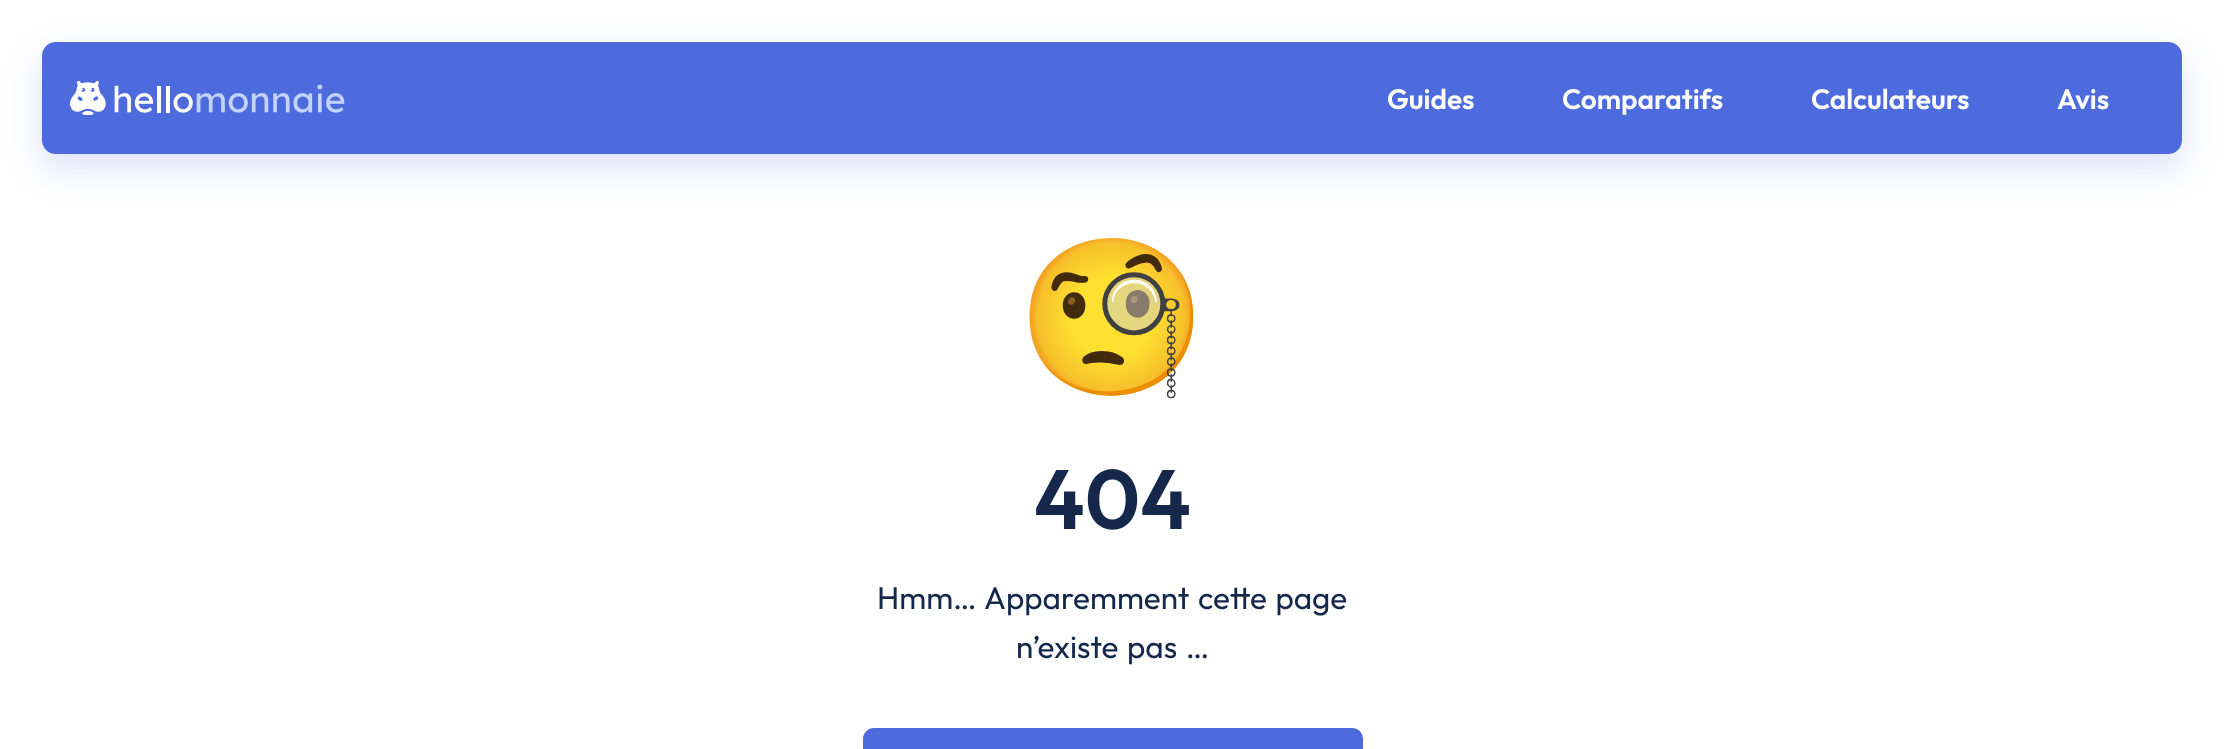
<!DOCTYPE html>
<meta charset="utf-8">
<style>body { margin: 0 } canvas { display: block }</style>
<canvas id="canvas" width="2224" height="749"></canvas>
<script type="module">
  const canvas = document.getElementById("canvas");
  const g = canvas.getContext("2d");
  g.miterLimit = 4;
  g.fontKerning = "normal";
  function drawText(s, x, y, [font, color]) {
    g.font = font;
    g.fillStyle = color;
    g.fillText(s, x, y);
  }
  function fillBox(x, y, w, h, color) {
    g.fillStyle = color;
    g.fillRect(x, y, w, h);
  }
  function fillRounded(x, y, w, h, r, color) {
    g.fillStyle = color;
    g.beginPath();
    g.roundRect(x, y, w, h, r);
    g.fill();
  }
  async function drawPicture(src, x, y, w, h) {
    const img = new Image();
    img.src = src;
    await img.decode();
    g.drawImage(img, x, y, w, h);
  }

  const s1 = ["600 28px Outfit", "#FFFFFF"];
  const s2 = ["154px Noto Color Emoji", "#15284B"];
  const s3 = ["600 84px Outfit", "#15284B"];
  const s4 = ["31.5px Outfit", "#15284B"];

  fillBox(0, 0, 2224, 749, "#FFFFFF");
  g.fillStyle = "rgba(77, 107, 221, 0.2)";
  g.filter = "blur(17.5px)";
  g.beginPath();
  g.roundRect(42, 56, 2140, 112, 14);
  g.fill();
  g.filter = "none";
  fillRounded(42, 42, 2140, 112, 14, "#4D6BDD");
  await drawPicture("pic1.png", 70, 81, 275, 34);
  drawText("Guides", 1387, 109, s1);
  drawText("Comparatifs", 1562, 109, s1);
  drawText("Calculateurs", 1811, 109, s1);
  drawText("Avis", 2057, 109, s1);
  drawText("🧐", 1016, 371, s2);
  drawText("404", 1034, 529, s3);
  drawText("Hmm…", 877, 609, s4);
  g.wordSpacing = "2px";
  drawText("Apparemment cette page", 984, 609, s4);
  drawText("n’existe pas …", 1016, 658, s4);
  fillRounded(863, 728, 500, 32, 11, "#4D6BDD");
</script>
